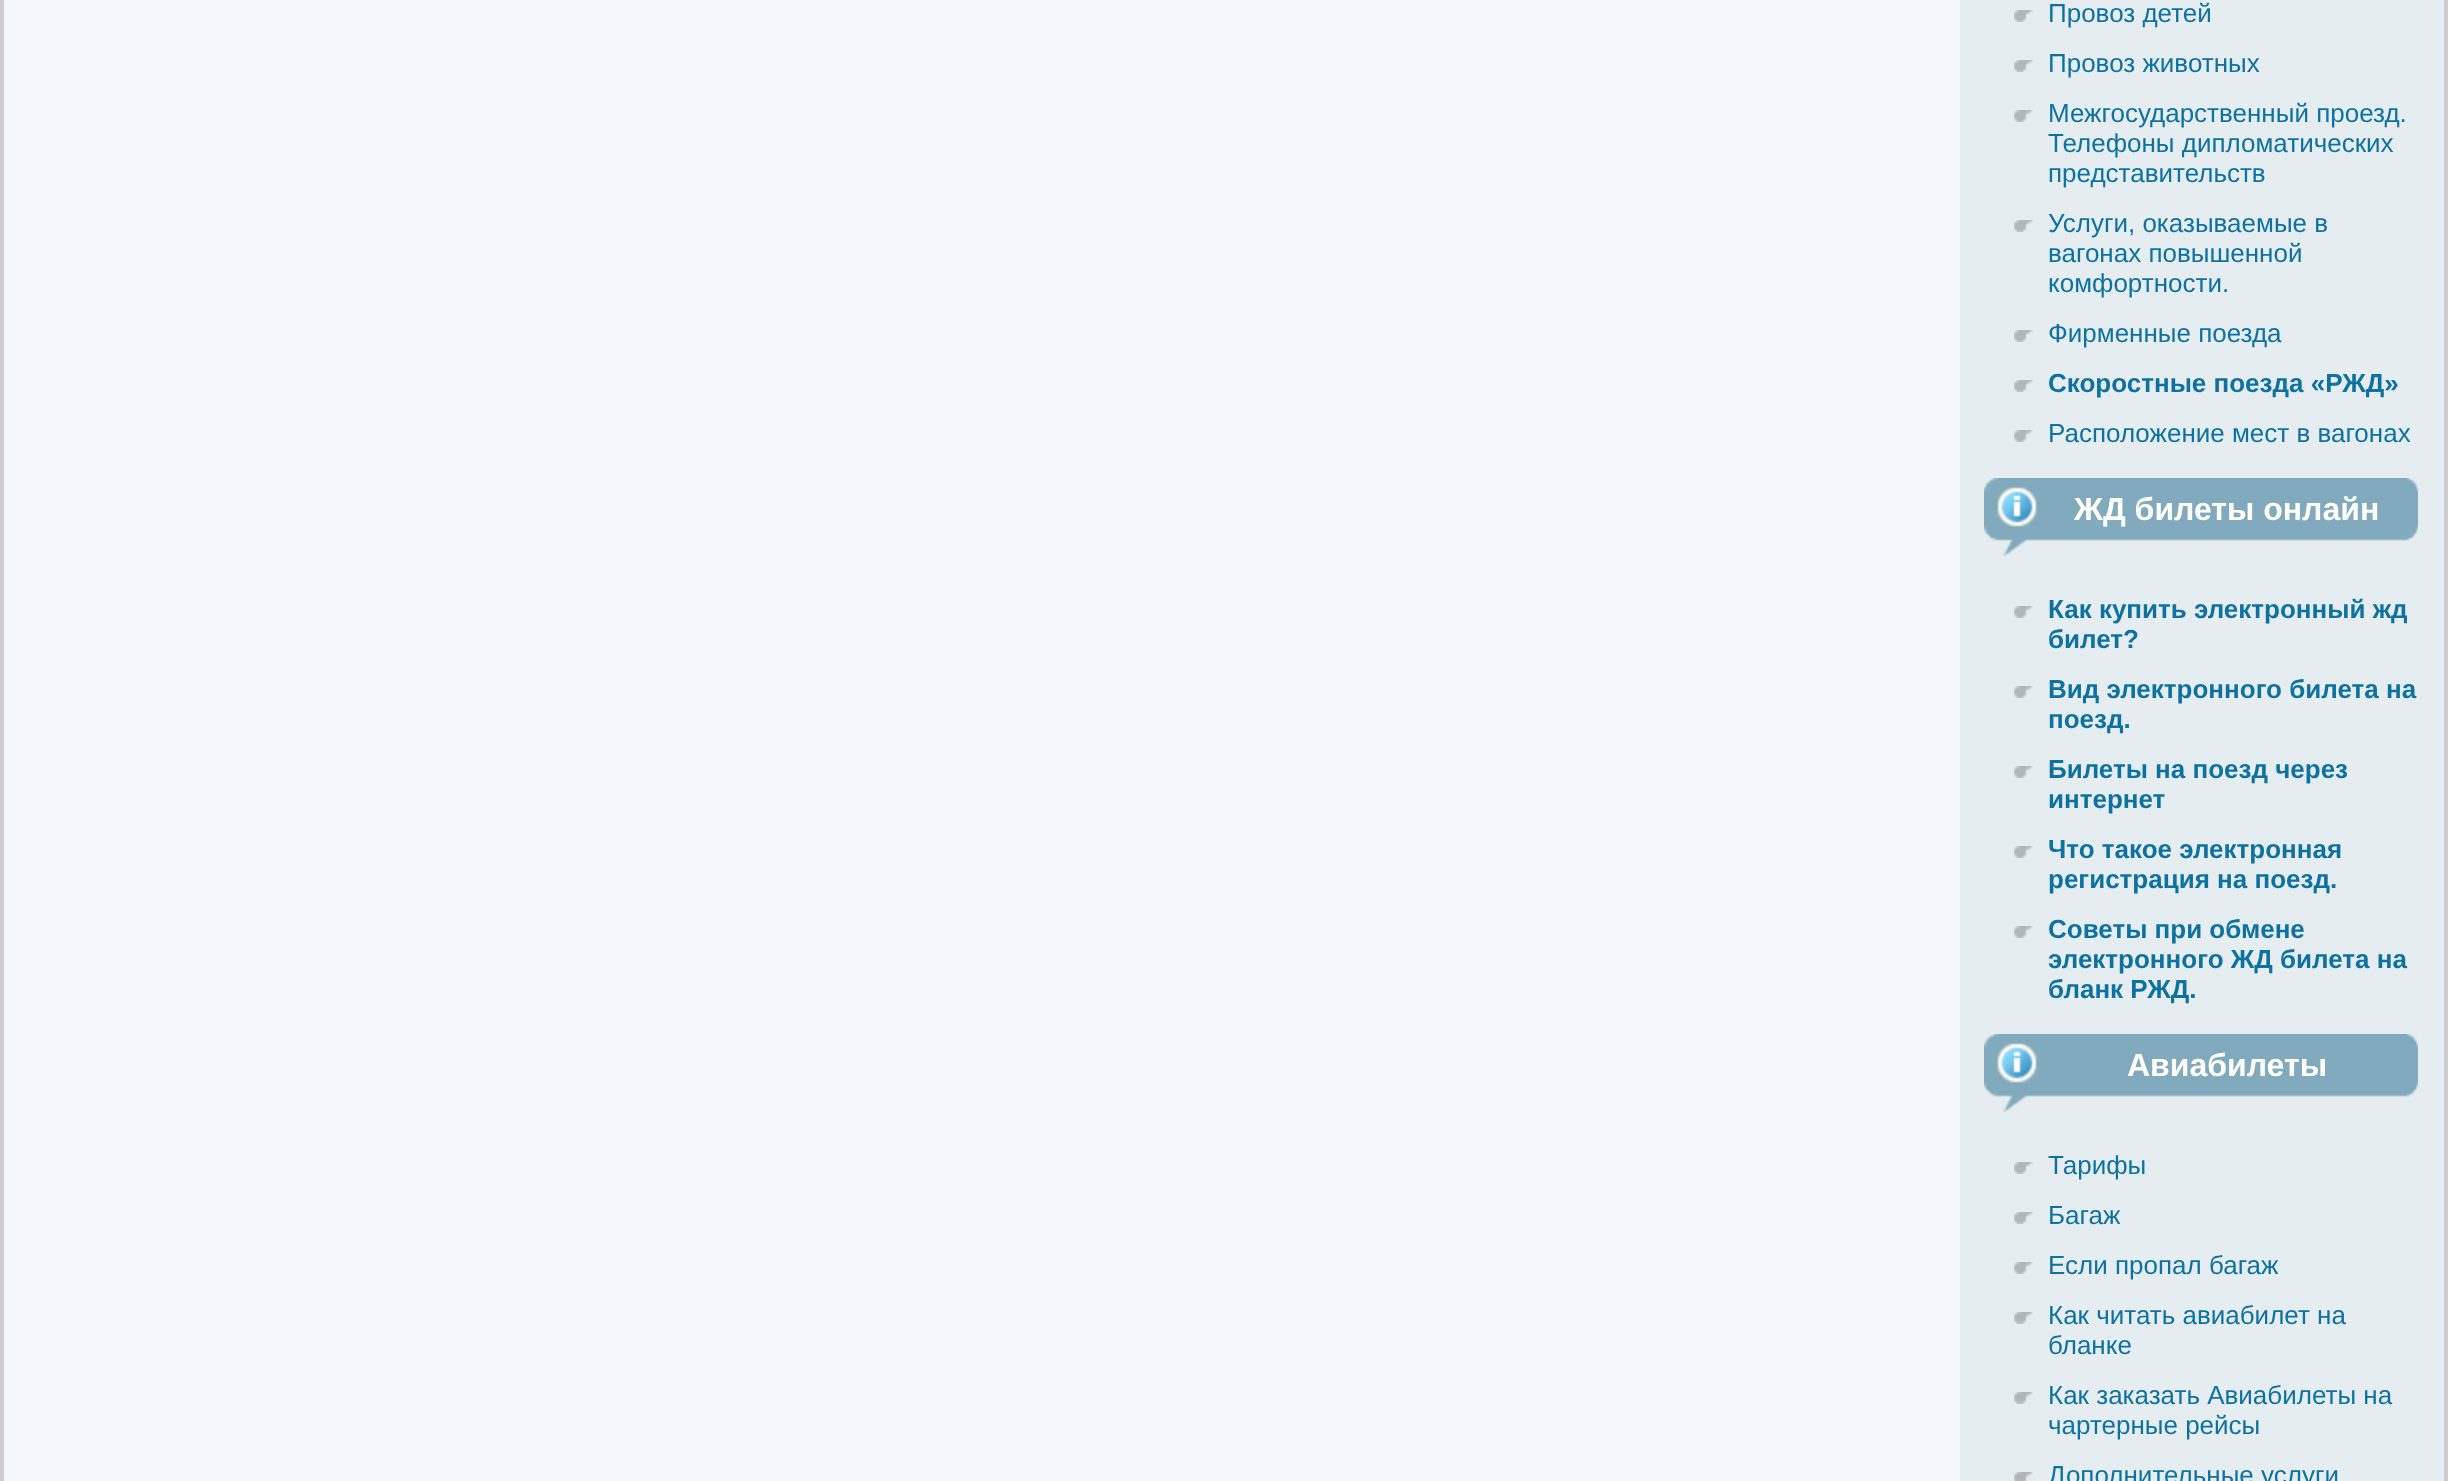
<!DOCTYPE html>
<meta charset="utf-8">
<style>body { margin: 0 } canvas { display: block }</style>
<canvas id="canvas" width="2448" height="1481"></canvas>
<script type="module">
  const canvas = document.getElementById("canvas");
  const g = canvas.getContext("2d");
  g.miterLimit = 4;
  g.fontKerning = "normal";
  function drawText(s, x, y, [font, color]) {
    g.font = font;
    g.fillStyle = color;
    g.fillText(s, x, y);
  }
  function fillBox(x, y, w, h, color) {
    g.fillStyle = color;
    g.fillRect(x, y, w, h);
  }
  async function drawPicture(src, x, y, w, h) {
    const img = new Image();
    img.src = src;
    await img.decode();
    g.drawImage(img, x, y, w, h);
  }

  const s1 = ["26px Liberation Sans", "#0E72A1"];
  const s2 = ["bold 26px Liberation Sans", "#0E72A1"];
  const s3 = ["bold 32px Liberation Sans", "#FFFFFF"];

  fillBox(0, 0, 2448, 1481, "#F5F8F9");
  fillBox(2444, 0, 4, 1481, "#CCCCCC");
  fillBox(0, 0, 4, 1481, "#CCCCCC");
  fillBox(1960, 0, 484, 1481, "#E6EDF0");
  await drawPicture("pic1.png", 2014, 10, 19, 12);
  drawText("Провоз детей", 2048, 22, s1);
  await drawPicture("pic1.png", 2014, 60, 19, 12);
  drawText("Провоз животных", 2048, 72, s1);
  await drawPicture("pic1.png", 2014, 110, 19, 12);
  drawText("Межгосударственный проезд.", 2048, 122, s1);
  drawText("Телефоны дипломатических", 2048, 152, s1);
  drawText("представительств", 2048, 182, s1);
  await drawPicture("pic1.png", 2014, 220, 19, 12);
  drawText("Услуги, оказываемые в", 2048, 232, s1);
  drawText("вагонах повышенной", 2048, 262, s1);
  drawText("комфортности.", 2048, 292, s1);
  await drawPicture("pic1.png", 2014, 330, 19, 12);
  drawText("Фирменные поезда", 2048, 342, s1);
  await drawPicture("pic1.png", 2014, 380, 19, 12);
  drawText("Скоростные поезда «РЖД»", 2048, 392, s2);
  await drawPicture("pic1.png", 2014, 430, 19, 12);
  drawText("Расположение мест в вагонах", 2048, 442, s1);
  await drawPicture("pic2.png", 1984, 478, 64, 78);
  await drawPicture("pic3.png", 2048, 478, 358, 63);
  drawText("ЖД билеты онлайн", 2074, 520, s3);
  await drawPicture("pic4.png", 2406, 478, 12, 63);
  await drawPicture("pic1.png", 2014, 606, 19, 12);
  drawText("Как купить электронный жд", 2048, 618, s2);
  drawText("билет?", 2048, 648, s2);
  await drawPicture("pic1.png", 2014, 686, 19, 12);
  drawText("Вид электронного билета на", 2048, 698, s2);
  drawText("поезд.", 2048, 728, s2);
  await drawPicture("pic1.png", 2014, 766, 19, 12);
  drawText("Билеты на поезд через", 2048, 778, s2);
  drawText("интернет", 2048, 808, s2);
  await drawPicture("pic1.png", 2014, 846, 19, 12);
  drawText("Что такое электронная", 2048, 858, s2);
  drawText("регистрация на поезд.", 2048, 888, s2);
  await drawPicture("pic1.png", 2014, 926, 19, 12);
  drawText("Советы при обмене", 2048, 938, s2);
  drawText("электронного ЖД билета на", 2048, 968, s2);
  drawText("бланк РЖД.", 2048, 998, s2);
  await drawPicture("pic2.png", 1984, 1034, 64, 78);
  await drawPicture("pic3.png", 2048, 1034, 358, 63);
  drawText("Авиабилеты", 2127, 1076, s3);
  await drawPicture("pic4.png", 2406, 1034, 12, 63);
  await drawPicture("pic1.png", 2014, 1162, 19, 12);
  drawText("Тарифы", 2048, 1174, s1);
  await drawPicture("pic1.png", 2014, 1212, 19, 12);
  drawText("Багаж", 2048, 1224, s1);
  await drawPicture("pic1.png", 2014, 1262, 19, 12);
  drawText("Если пропал багаж", 2048, 1274, s1);
  await drawPicture("pic1.png", 2014, 1312, 19, 12);
  drawText("Как читать авиабилет на", 2048, 1324, s1);
  drawText("бланке", 2048, 1354, s1);
  await drawPicture("pic1.png", 2014, 1392, 19, 12);
  drawText("Как заказать Авиабилеты на", 2048, 1404, s1);
  drawText("чартерные рейсы", 2048, 1434, s1);
  await drawPicture("pic5.png", 2014, 1472, 19, 9);
  drawText("Дополнительные услуги", 2048, 1484, s1);
</script>
